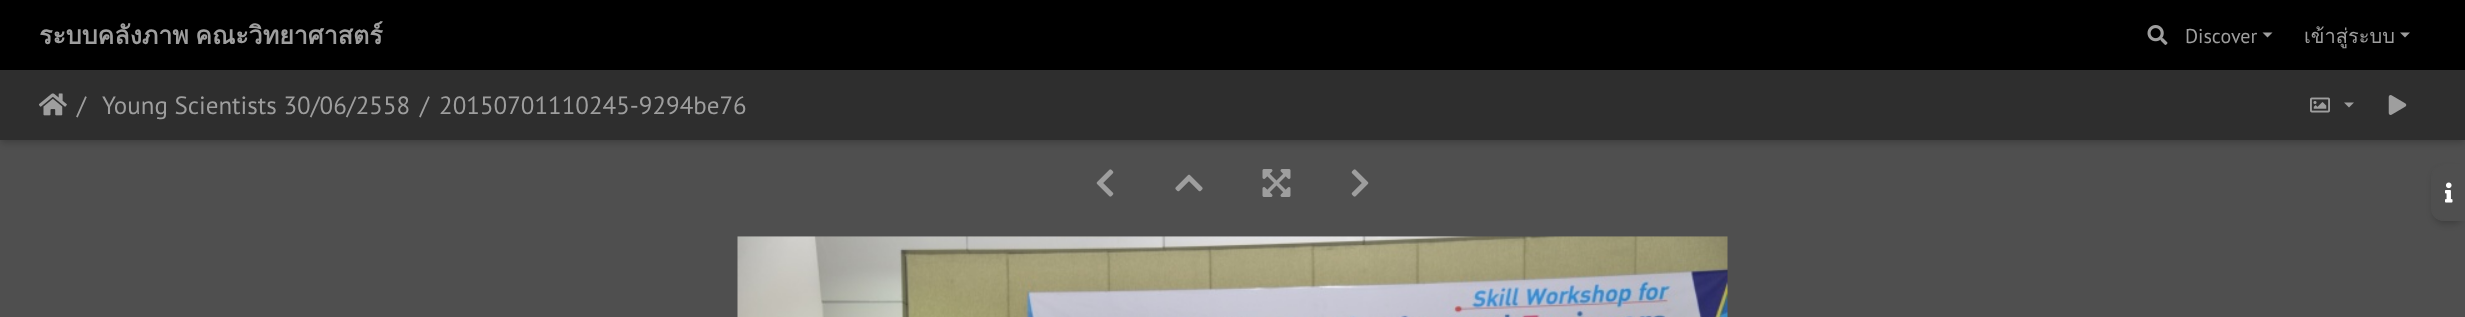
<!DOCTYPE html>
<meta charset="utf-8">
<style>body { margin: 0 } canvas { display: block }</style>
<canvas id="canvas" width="2465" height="317"></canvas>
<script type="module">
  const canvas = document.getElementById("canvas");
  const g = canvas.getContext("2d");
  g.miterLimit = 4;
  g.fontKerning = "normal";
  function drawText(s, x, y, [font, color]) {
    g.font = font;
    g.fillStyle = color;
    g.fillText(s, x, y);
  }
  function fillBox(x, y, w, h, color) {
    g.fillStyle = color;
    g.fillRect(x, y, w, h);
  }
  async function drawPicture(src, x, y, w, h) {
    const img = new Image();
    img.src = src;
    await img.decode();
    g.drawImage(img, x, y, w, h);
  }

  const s1 = ["bold 25px Loma", "#9E9E9E"];
  const s2 = ["20px PT Sans", "#9E9E9E"];
  const s3 = ["20px Loma", "#9E9E9E"];
  const s4 = ["25px PT Sans", "#9E9E9E"];

  fillBox(0, 0, 2465, 317, "#4F4F4F");
  g.fillStyle = "rgba(0, 0, 0, 0.2)";
  g.filter = "blur(3px)";
  g.beginPath();
  g.rect(1, 75, 2463, 68);
  g.fill();
  g.filter = "none";
  fillBox(0, 0, 2465, 70, "#000000");
  g.wordSpacing = "-2px";
  drawText("ระบบคลังภาพ คณะวิทยาศาสตร์", 39, 44, s1);
  await drawPicture("pic1.png", 2147, 25, 21, 20);
  g.wordSpacing = "0px";
  drawText("Discover", 2185, 43, s2);
  g.beginPath();
  g.moveTo(2262.5, 32.5);
  g.lineTo(2272.5, 32.5);
  g.lineTo(2267.5, 37.5);
  g.closePath();
  g.fill();
  drawText("เข้าสู่ระบบ", 2304, 43, s3);
  g.beginPath();
  g.moveTo(2400, 32.5);
  g.lineTo(2410, 32.5);
  g.lineTo(2405, 37.5);
  g.closePath();
  g.fill();
  fillBox(0, 70, 2465, 70, "#2E2E2E");
  await drawPicture("pic2.png", 39, 93, 28, 23);
  drawText("/", 77, 114, s4);
  drawText("Young Scientists 30/06/2558", 102, 114, s4);
  drawText("/", 420, 114, s4);
  drawText("20150701110245-9294be76", 439, 114, s4);
  await drawPicture("pic3.png", 2310, 97, 20, 16);
  g.beginPath();
  g.moveTo(2344, 102.5);
  g.lineTo(2354, 102.5);
  g.lineTo(2349, 107.5);
  g.closePath();
  g.fill();
  await drawPicture("pic4.png", 2388, 95, 19, 20);
  await drawPicture("pic5.png", 1096, 169, 18, 28);
  await drawPicture("pic6.png", 1175, 174, 28, 18);
  await drawPicture("pic7.png", 1262, 169, 29, 28);
  await drawPicture("pic8.png", 1351, 169, 18, 28);
  g.fillStyle = "rgba(0, 0, 0, 0.2)";
  g.filter = "blur(3px)";
  g.beginPath();
  g.roundRect(2433, 169, 31, 55, 11);
  g.fill();
  g.filter = "none";
  g.fillStyle = "#4F4F4F";
  g.beginPath();
  g.roundRect(2431, 164, 34, 57, [13, 0, 0, 13]);
  g.fill();
  g.beginPath();
  g.moveTo(2444, 164);
  g.lineTo(2465, 164);
  g.lineTo(2465, 221);
  g.lineTo(2444, 221);
  g.bezierCurveTo(2437, 221, 2431, 216, 2431, 209);
  g.lineTo(2431, 176);
  g.bezierCurveTo(2431, 169, 2437, 164, 2444, 164);
  g.closePath();
  g.moveTo(2444, 165);
  g.lineTo(2465, 165);
  g.lineTo(2465, 220);
  g.lineTo(2444, 220);
  g.bezierCurveTo(2438, 220, 2432, 215, 2432, 209);
  g.lineTo(2432, 176);
  g.bezierCurveTo(2432, 170, 2438, 165, 2444, 165);
  g.closePath();
  g.fill("evenodd");
  await drawPicture("pic9.png", 2445, 182, 8, 21);
  await drawPicture("pic10.png", 737, 236, 991, 81);
</script>
